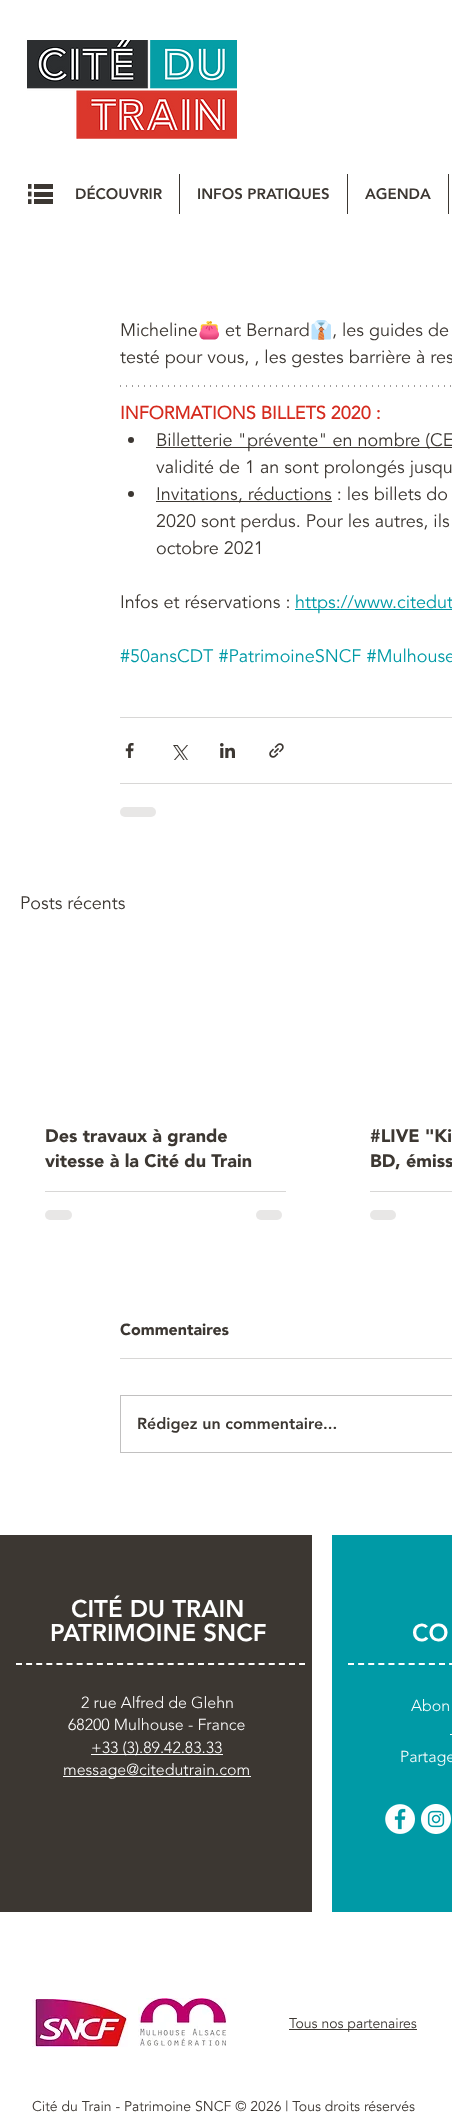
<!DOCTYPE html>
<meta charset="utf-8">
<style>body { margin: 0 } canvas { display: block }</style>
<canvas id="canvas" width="452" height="2124"></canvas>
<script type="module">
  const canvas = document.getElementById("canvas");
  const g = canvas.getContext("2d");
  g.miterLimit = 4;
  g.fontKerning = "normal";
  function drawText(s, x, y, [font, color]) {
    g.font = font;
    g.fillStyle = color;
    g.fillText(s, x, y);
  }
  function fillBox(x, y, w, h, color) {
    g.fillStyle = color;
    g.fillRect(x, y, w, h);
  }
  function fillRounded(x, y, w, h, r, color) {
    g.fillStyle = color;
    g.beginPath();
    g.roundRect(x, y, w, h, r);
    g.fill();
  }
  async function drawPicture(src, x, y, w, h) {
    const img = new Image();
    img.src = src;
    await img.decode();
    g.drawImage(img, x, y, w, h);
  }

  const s1 = ["900 15px 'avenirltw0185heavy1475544'", "#3C3732"];
  const s2 = ["18px Avenir", "#3C3732"];
  const s3 = ["18px Noto Color Emoji", "#3C3732"];
  const s4 = ["bold 18px Avenir", "#D52B1E"];
  const s5 = ["18px Avenir", "#009AA6"];
  const s6 = ["900 18px Avenir", "#3C3732"];
  const s7 = ["900 16px Avenir", "#3C3732"];
  const s8 = ["900 16px 'avenirltw0185heavy1475544'", "#3C3732"];
  const s9 = ["900 24px 'avenirltw0185heavy1475544'", "#FFFFFF"];
  const s10 = ["300 16px 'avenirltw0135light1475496'", "#FFFFFF"];
  const s11 = ["14px Avenir", "#3C3732"];

  fillBox(0, 0, 452, 2124, "#FFFFFF");
  await drawPicture("pic1.png", 27, 40, 210, 99);
  await drawPicture("pic2.png", 28, 184, 25, 20);
  drawText("DÉCOUVRIR", 75, 199, s1);
  fillBox(179, 174, 1, 40, "#3C3732");
  drawText("INFOS PRATIQUES", 197, 199, s1);
  fillBox(347, 174, 1, 40, "#3C3732");
  drawText("AGENDA", 365, 199, s1);
  fillBox(448, 174, 1, 40, "#3C3732");
  drawText("Micheline", 120, 336, s2);
  drawText("👛", 198, 336, s3);
  drawText("et Bernard", 225, 336, s2);
  drawText("👔", 310, 336, s3);
  drawText(", les guides de", 332, 336, s2);
  drawText("testé pour vous, , les gestes barrière à res", 120, 363, s2);
  g.beginPath();
  g.moveTo(120, 386);
  g.lineTo(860, 386);
  g.strokeStyle = "#3C3732";
  g.setLineDash([1, 5]);
  g.stroke();
  drawText("INFORMATIONS BILLETS 2020 :", 120, 419, s4);
  g.fillStyle = "#3C3732";
  g.beginPath();
  g.arc(131, 440, 3, 0, Math.PI * 2);
  g.fill();
  fillBox(156, 447, 296, 1, "#3C3732");
  drawText("Billetterie \"prévente\" en nombre (CE", 156, 446, s2);
  drawText("validité de 1 an sont prolongés jusqu", 156, 473, s2);
  g.beginPath();
  g.arc(131, 494, 3, 0, Math.PI * 2);
  g.fill();
  fillBox(156, 501, 176, 1, "#3C3732");
  drawText("Invitations, réductions : les billets do", 156, 500, s2);
  drawText("2020 sont perdus. Pour les autres, ils", 156, 527, s2);
  drawText("octobre 2021", 156, 554, s2);
  drawText("Infos et réservations :", 120, 608, s2);
  fillBox(295, 609, 157, 1, "#009AA6");
  drawText("https://www.citedut", 295, 608, s5);
  drawText("#50ansCDT #PatrimoineSNCF #Mulhouse", 120, 662, s5);
  fillBox(120, 717, 332, 1, "#D8D7D6");
  await drawPicture("pic3.png", 125, 743, 9, 15);
  await drawPicture("pic4.png", 173, 745, 15, 15);
  await drawPicture("pic5.png", 220, 743, 15, 15);
  await drawPicture("pic6.png", 269, 743, 15, 15);
  fillBox(120, 783, 332, 1, "#D8D7D6");
  fillRounded(120, 807, 36, 10, 5, "#E8E7E6");
  drawText("Posts récents", 20, 909, s2);
  drawText("Des travaux à grande", 45, 1142, s6);
  drawText("vitesse à la Cité du Train", 45, 1167, s6);
  fillBox(45, 1191, 241, 1, "#D8D7D6");
  fillRounded(45, 1210, 27, 10, 5, "#E8E7E6");
  fillRounded(256, 1210, 26, 10, 5, "#E8E7E6");
  drawText("#LIVE \"Ki", 370, 1142, s6);
  drawText("BD, émiss", 370, 1167, s6);
  fillBox(370, 1191, 82, 1, "#D8D7D6");
  fillRounded(370, 1210, 26, 10, 5, "#E8E7E6");
  drawText("Commentaires", 120, 1335, s7);
  fillBox(120, 1358, 332, 1, "#D8D7D6");
  g.strokeStyle = "#C1C0C0";
  g.setLineDash([]);
  g.strokeRect(120.5, 1395.5, 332, 57);
  drawText("Rédigez un commentaire...", 137, 1429, s8);
  fillBox(0, 1535, 312, 377, "#3C3732");
  drawText("CITÉ DU TRAIN", 71, 1617, s9);
  drawText("PATRIMOINE SNCF", 50, 1641, s9);
  g.beginPath();
  g.moveTo(16, 1664);
  g.lineTo(305, 1664);
  g.strokeStyle = "#FFFFFF";
  g.lineWidth = 2;
  g.setLineDash([6, 4.11]);
  g.stroke();
  drawText("2 rue Alfred de Glehn", 81, 1708, s10);
  drawText("68200 Mulhouse - France", 68, 1730, s10);
  fillBox(91, 1754, 132, 1, "#FFFFFF");
  drawText("+33 (3).89.42.83.33", 91, 1753, s10);
  fillBox(63, 1776, 188, 1, "#FFFFFF");
  drawText("message@citedutrain.com", 63, 1775, s10);
  fillBox(332, 1535, 120, 377, "#009AA6");
  drawText("CO", 412, 1641, s9);
  g.beginPath();
  g.moveTo(348, 1664);
  g.lineTo(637, 1664);
  g.stroke();
  drawText("Abon", 411, 1711, s10);
  fillBox(450, 1734, 2, 1, "#FFFFFF");
  drawText("Partage", 400, 1762, s10);
  await drawPicture("pic7.png", 385, 1804, 30, 30);
  await drawPicture("pic8.png", 421, 1804, 30, 30);
  await drawPicture("pic9.png", 32, 1999, 96, 48);
  await drawPicture("pic10.png", 138, 1998, 89, 48);
  fillBox(289, 2029, 128, 1, "#3C3732");
  drawText("Tous nos partenaires", 289, 2028, s11);
  drawText("Cité du Train - Patrimoine SNCF © 2026 | Tous droits réservés", 32, 2111, s11);
</script>
